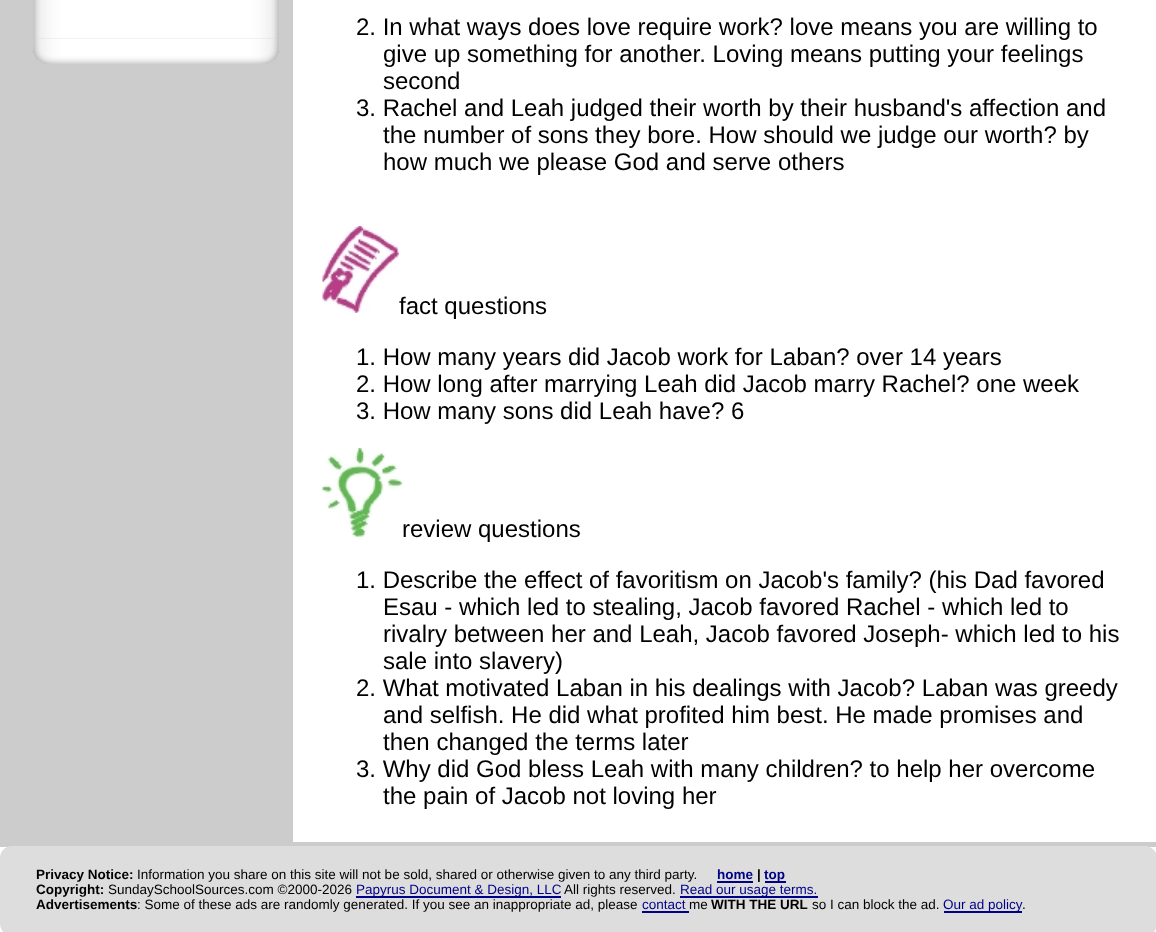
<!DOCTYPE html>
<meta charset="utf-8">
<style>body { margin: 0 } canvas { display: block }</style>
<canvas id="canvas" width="1156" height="932"></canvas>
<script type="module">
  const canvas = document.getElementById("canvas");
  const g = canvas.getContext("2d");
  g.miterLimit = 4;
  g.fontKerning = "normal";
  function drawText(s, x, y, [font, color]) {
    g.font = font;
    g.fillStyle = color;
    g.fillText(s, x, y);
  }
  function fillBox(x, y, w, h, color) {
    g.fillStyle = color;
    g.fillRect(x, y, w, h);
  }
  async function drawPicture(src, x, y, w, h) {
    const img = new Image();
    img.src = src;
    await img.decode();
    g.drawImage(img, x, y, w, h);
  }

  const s1 = ["24px Liberation Sans", "#000000"];
  const s2 = ["bold 13.5px Liberation Sans", "#000000"];
  const s3 = ["13.5px Liberation Sans", "#000000"];
  const s4 = ["bold 13.5px Liberation Sans", "#000088"];
  const s5 = ["13.5px Liberation Sans", "#000088"];

  fillBox(0, 0, 1156, 932, "#FFFFFF");
  fillBox(0, 842, 1156, 5, "#CCCCCC");
  fillBox(0, 0, 293, 842, "#CCCCCC");
  await drawPicture("pic1.png", 33, 0, 246, 39);
  await drawPicture("pic2.png", 33, 38, 246, 26);
  drawText("2. In what ways does love require work? love means you are willing to", 356, 35, s1);
  drawText("give up something for another. Loving means putting your feelings", 383, 62, s1);
  drawText("second", 383, 89, s1);
  drawText("3. Rachel and Leah judged their worth by their husband's affection and", 356, 116, s1);
  drawText("the number of sons they bore. How should we judge our worth? by", 383, 143, s1);
  drawText("how much we please God and serve others", 383, 170, s1);
  await drawPicture("pic3.png", 322, 226, 77, 87);
  drawText("fact questions", 399, 314, s1);
  drawText("1. How many years did Jacob work for Laban? over 14 years", 356, 365, s1);
  drawText("2. How long after marrying Leah did Jacob marry Rachel? one week", 356, 392, s1);
  drawText("3. How many sons did Leah have? 6", 356, 419, s1);
  await drawPicture("pic4.png", 322, 448, 80, 89);
  drawText("review questions", 402, 537, s1);
  drawText("1. Describe the effect of favoritism on Jacob's family? (his Dad favored", 356, 588, s1);
  drawText("Esau - which led to stealing, Jacob favored Rachel - which led to", 383, 615, s1);
  drawText("rivalry between her and Leah, Jacob favored Joseph- which led to his", 383, 642, s1);
  drawText("sale into slavery)", 383, 669, s1);
  drawText("2. What motivated Laban in his dealings with Jacob? Laban was greedy", 356, 696, s1);
  drawText("and selfish. He did what profited him best. He made promises and", 383, 723, s1);
  drawText("then changed the terms later", 383, 750, s1);
  drawText("3. Why did God bless Leah with many children? to help her overcome", 356, 777, s1);
  drawText("the pain of Jacob not loving her", 383, 804, s1);
  g.fillStyle = "#DDDDDD";
  g.beginPath();
  g.roundRect(1, 847, 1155, 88, 11);
  g.fill();
  g.strokeStyle = "#DDDDDD";
  g.lineWidth = 2;
  g.stroke();
  drawText("Privacy Notice:", 36, 879, s2);
  drawText("Information you share on this site will not be sold, shared or otherwise given to any third party.", 137, 879, s3);
  drawText("home", 717, 879, s4);
  fillBox(717, 881, 36, 2, "#000088");
  drawText("|", 757, 879, s2);
  fillBox(765, 881, 21, 2, "#000088");
  drawText("top", 764, 879, s4);
  drawText("Copyright:", 36, 894, s2);
  drawText("SundaySchoolSources.com ©2000-2026", 108, 894, s3);
  fillBox(356, 896, 205, 2, "#000088");
  drawText("Papyrus Document & Design, LLC", 356, 894, s5);
  drawText("All rights reserved.", 564, 894, s3);
  fillBox(680, 896, 138, 2, "#000088");
  drawText("Read our usage terms.", 680, 894, s5);
  drawText("Advertisements", 36, 909, s2);
  drawText(": Some of these ads are randomly generated. If you see an inappropriate ad, please", 137, 909, s3);
  drawText("contact", 642, 909, s5);
  drawText("me", 689, 909, s3);
  fillBox(642, 911, 47, 2, "#000088");
  drawText("WITH THE URL", 711, 909, s2);
  drawText("so I can block the ad.", 812, 909, s3);
  fillBox(944, 911, 78, 2, "#000088");
  drawText("Our ad policy", 943, 909, s5);
  drawText(".", 1022, 909, s3);
</script>
